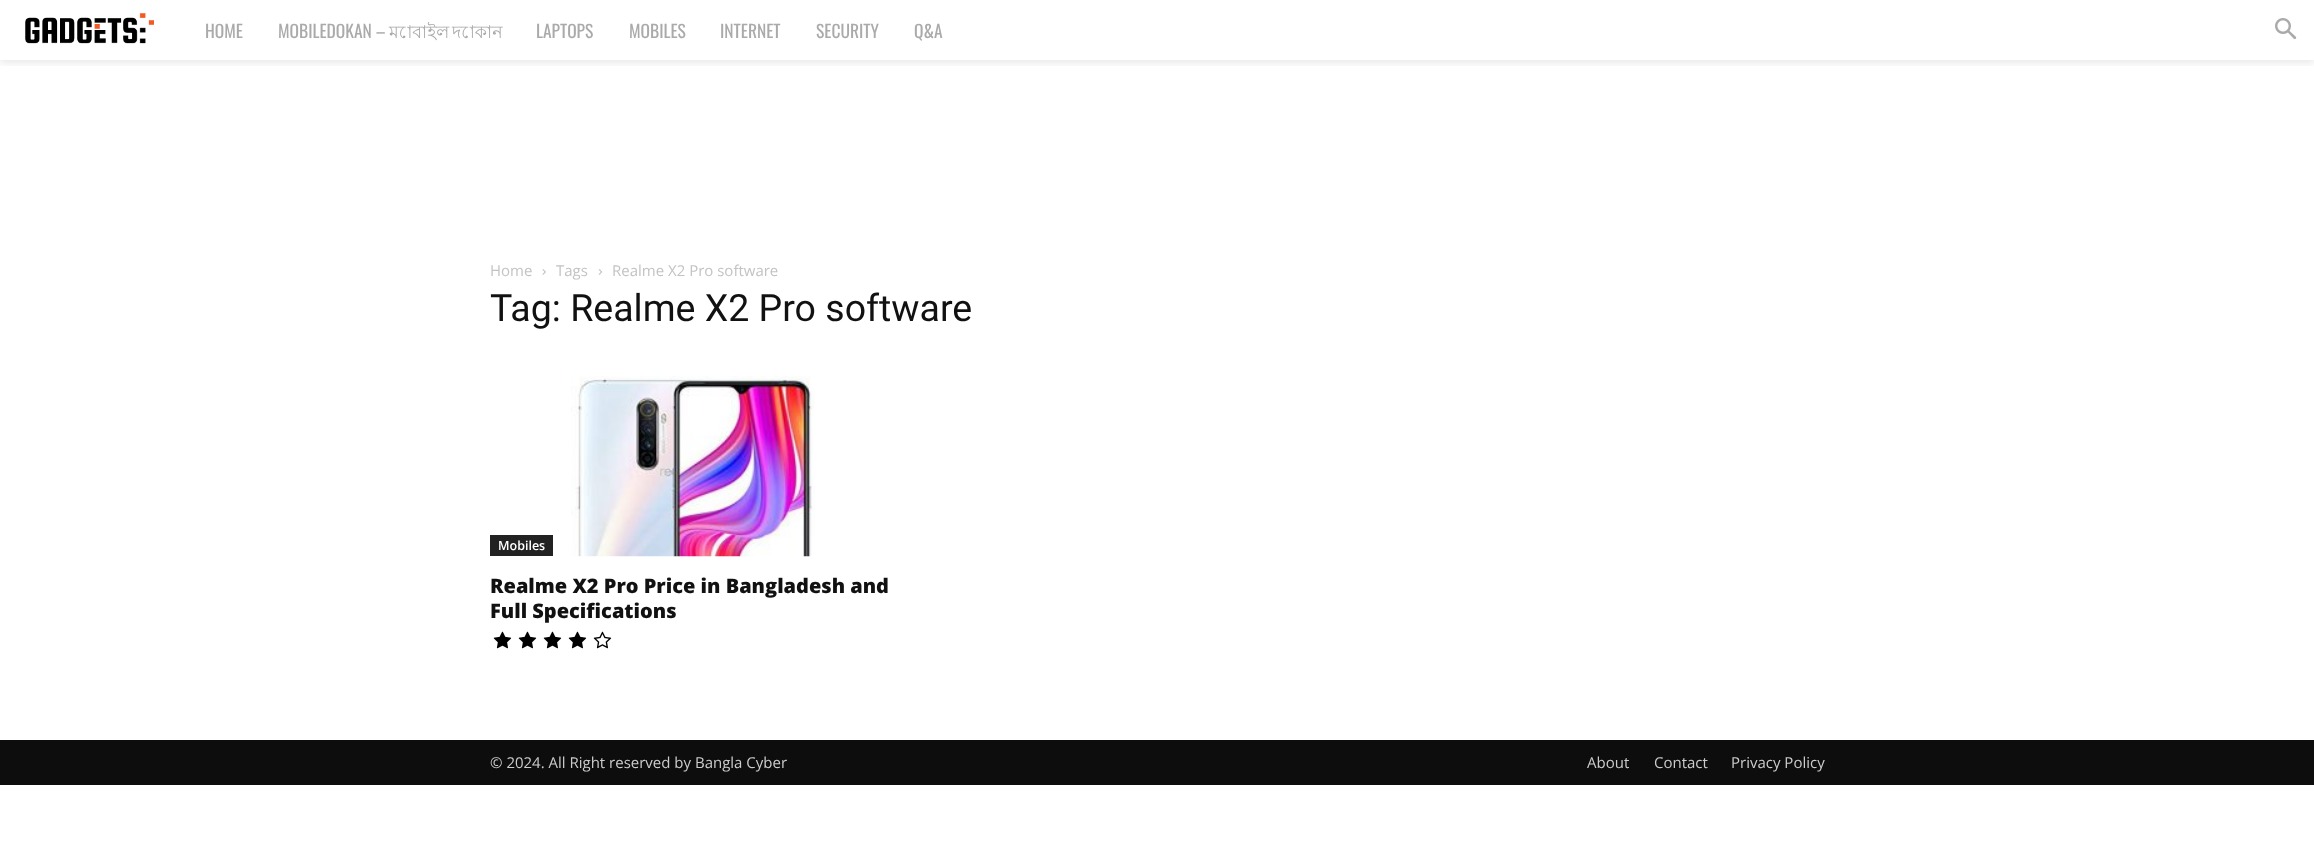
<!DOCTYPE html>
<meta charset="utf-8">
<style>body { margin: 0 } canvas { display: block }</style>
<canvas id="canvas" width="2314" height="844"></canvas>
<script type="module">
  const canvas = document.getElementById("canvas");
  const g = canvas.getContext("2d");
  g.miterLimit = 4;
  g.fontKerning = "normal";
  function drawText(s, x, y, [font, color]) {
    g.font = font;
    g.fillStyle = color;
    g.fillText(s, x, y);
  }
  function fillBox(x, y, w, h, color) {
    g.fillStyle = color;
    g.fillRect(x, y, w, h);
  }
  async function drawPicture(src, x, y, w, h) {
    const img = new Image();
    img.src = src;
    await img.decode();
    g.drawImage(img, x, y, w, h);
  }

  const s1 = ["17.5px Oswald", "#AAAAAA"];
  const s2 = ["17.5px Lohit Bengali", "#AAAAAA"];
  const s3 = ["15px Open Sans", "#C3C3C3"];
  const s4 = ["37.5px Roboto", "#111111"];
  const s5 = ["600 12.5px Open Sans", "#FFFFFF"];
  const s6 = ["800 20px Open Sans", "#111111"];
  const s7 = ["15px Open Sans", "#CCCCCC"];

  fillBox(0, 0, 2314, 844, "#FFFFFF");
  g.save();
  g.beginPath();
  g.rect(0, 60, 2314, 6);
  g.clip();
  g.fillStyle = "rgba(0, 0, 0, 0.09)";
  g.filter = "blur(4px)";
  g.beginPath();
  g.rect(0, 3, 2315, 60);
  g.fill();
  g.filter = "none";
  g.restore();
  await drawPicture("pic1.png", 25, 13, 129, 31);
  drawText("HOME", 205, 38, s1);
  drawText("MOBILEDOKAN –", 278, 38, s1);
  drawText("মোবাইল", 389, 38, s2);
  drawText("দোকান", 452, 38, s2);
  drawText("LAPTOPS", 536, 38, s1);
  drawText("MOBILES", 629, 38, s1);
  drawText("INTERNET", 720, 38, s1);
  drawText("SECURITY", 816, 38, s1);
  drawText("Q&A", 914, 38, s1);
  await drawPicture("pic2.png", 2275, 18, 22, 22);
  drawText("Home", 490, 276, s3);
  await drawPicture("pic3.png", 542, 269, 4, 6);
  drawText("Tags", 556, 276, s3);
  await drawPicture("pic4.png", 598, 269, 4, 6);
  drawText("Realme X2 Pro software", 612, 276, s3);
  drawText("Tag: Realme X2 Pro software", 490, 321, s4);
  fillBox(490, 535, 63, 21, "#222222");
  drawText("Mobiles", 498, 550, s5);
  await drawPicture("pic5.png", 571, 376, 244, 181);
  drawText("Realme X2 Pro Price in Bangladesh and", 490, 593, s6);
  drawText("Full Specifications", 490, 618, s6);
  await drawPicture("pic6.png", 493, 631, 19, 18);
  await drawPicture("pic6.png", 518, 631, 19, 18);
  await drawPicture("pic6.png", 543, 631, 19, 18);
  await drawPicture("pic6.png", 568, 631, 19, 18);
  await drawPicture("pic7.png", 593, 631, 19, 18);
  fillBox(0, 740, 2314, 45, "#0D0D0D");
  drawText("© 2024. All Right reserved by Bangla Cyber", 490, 768, s7);
  drawText("About", 1587, 768, s7);
  drawText("Contact", 1654, 768, s7);
  drawText("Privacy Policy", 1731, 768, s7);
</script>
